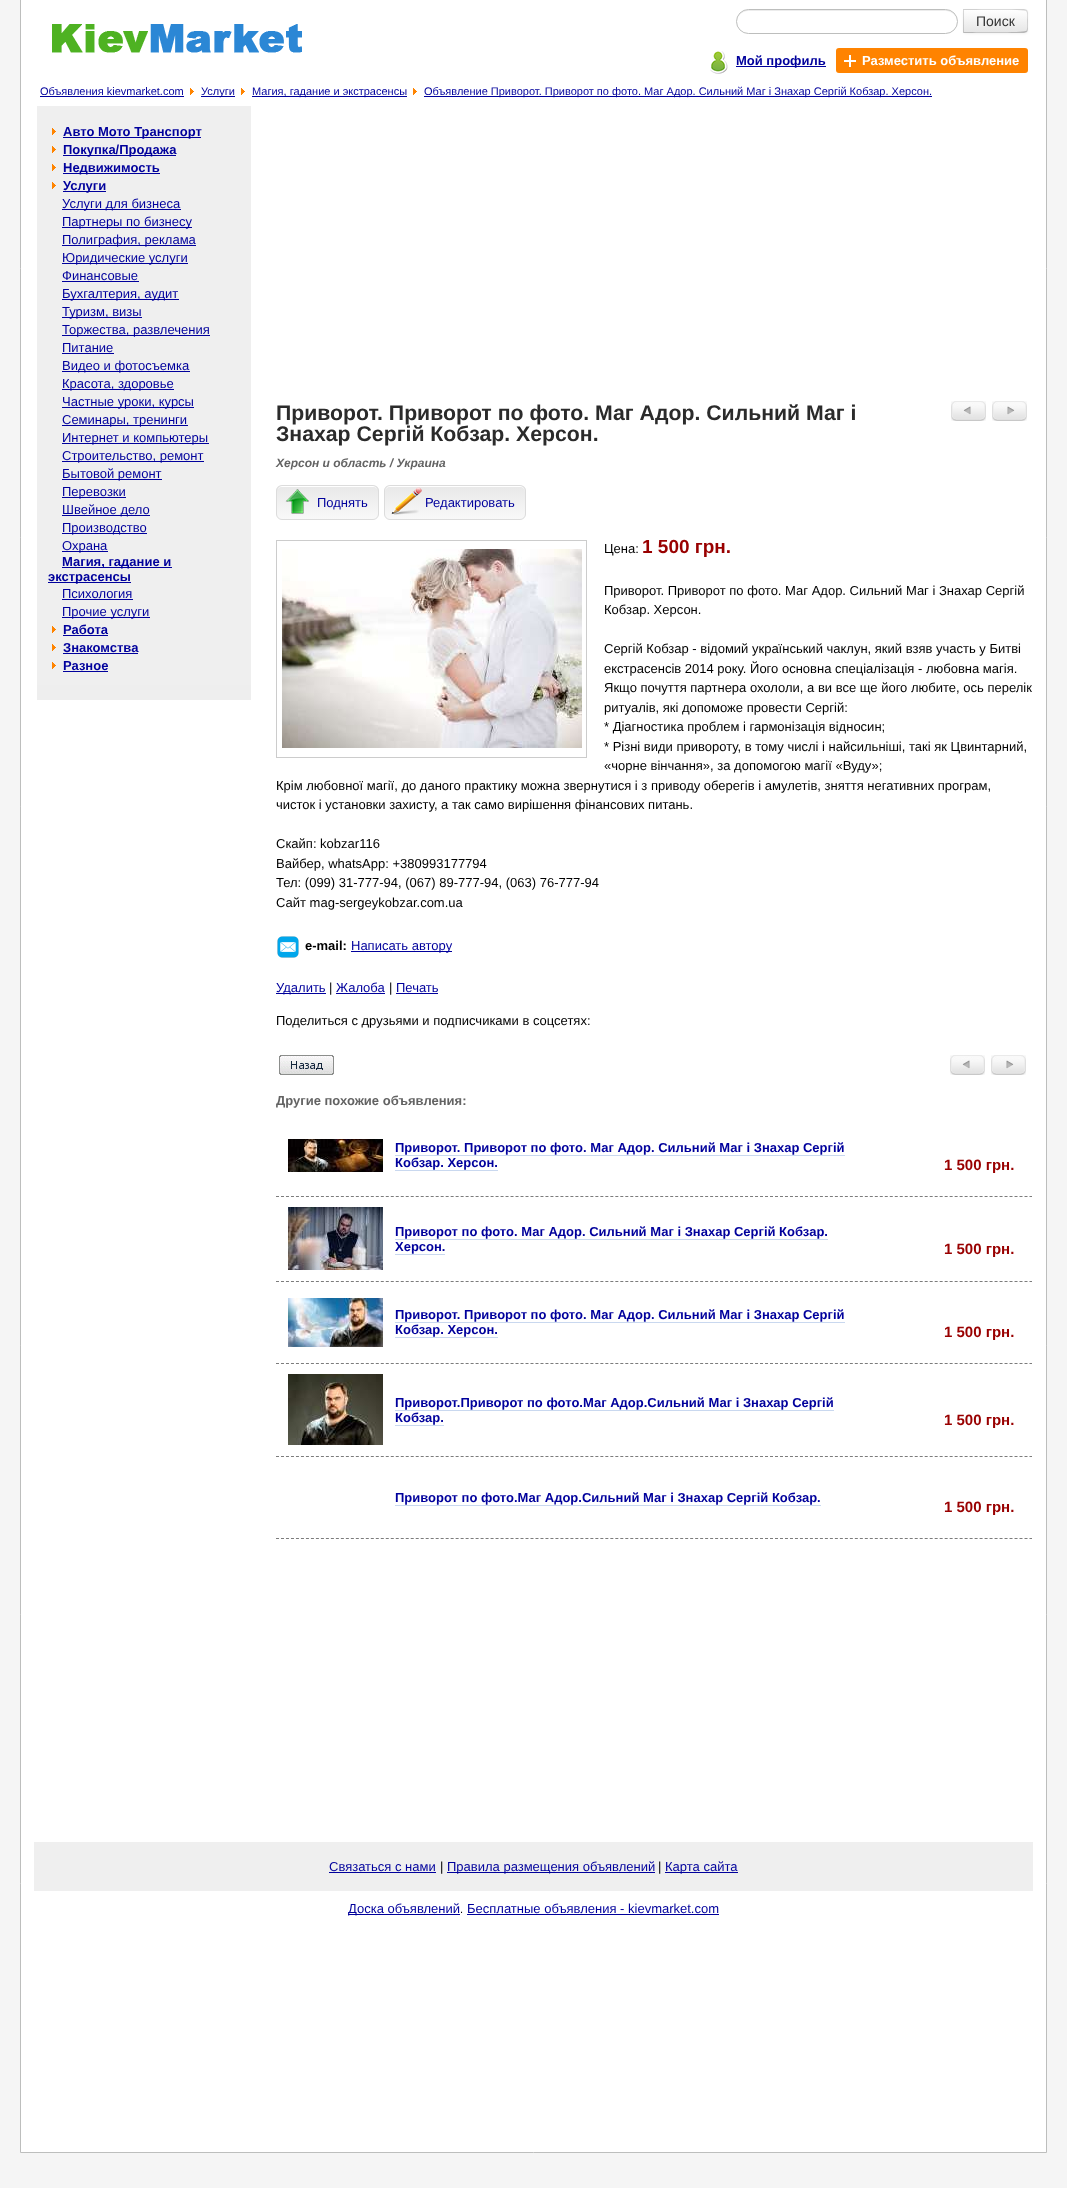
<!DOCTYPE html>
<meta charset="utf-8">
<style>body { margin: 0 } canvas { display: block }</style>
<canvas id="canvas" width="1067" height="2188"></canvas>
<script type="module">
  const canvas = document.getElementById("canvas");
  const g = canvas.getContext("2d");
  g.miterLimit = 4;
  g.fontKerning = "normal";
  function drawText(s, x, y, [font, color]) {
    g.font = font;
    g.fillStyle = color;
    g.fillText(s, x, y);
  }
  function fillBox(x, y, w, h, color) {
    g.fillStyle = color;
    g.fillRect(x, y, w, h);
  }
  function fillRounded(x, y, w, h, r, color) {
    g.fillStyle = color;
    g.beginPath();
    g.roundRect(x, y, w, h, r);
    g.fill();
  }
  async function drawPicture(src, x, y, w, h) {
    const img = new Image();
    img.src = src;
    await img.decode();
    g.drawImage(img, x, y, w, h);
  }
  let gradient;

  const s1 = ["14px Liberation Sans", "#333333"];
  const s2 = ["bold 13px Liberation Sans", "#00009C"];
  const s3 = ["bold 13px Liberation Sans", "#FFFFFF"];
  const s4 = ["11px Liberation Sans", "#00009C"];
  const s5 = ["13px Liberation Sans", "#00009C"];
  const s6 = ["bold 21.25px Liberation Sans", "#2B2B2B"];
  const s7 = ["italic bold 12px Liberation Sans", "#636363"];
  const s8 = ["13px Liberation Sans", "#000000"];
  const s9 = ["bold 19px Liberation Sans", "#990000"];
  const s10 = ["bold 13px Liberation Sans", "#000000"];
  const s11 = ["bold 13px Liberation Sans", "#636363"];
  const s12 = ["bold 15px Liberation Sans", "#990000"];
  const s13 = ["11px Liberation Sans", "#000000"];

  fillBox(0, 0, 1067, 2188, "#F5F5F5");
  g.fillStyle = "#FFFFFF";
  g.beginPath();
  g.rect(20.5, -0.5, 1026, 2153);
  g.fill();
  g.strokeStyle = "#BDBEBD";
  g.stroke();
  await drawPicture("pic1.png", 52, 24, 250, 29);
  g.fillStyle = "#ECECEC";
  g.beginPath();
  g.moveTo(748, 11);
  g.lineTo(946, 11);
  g.bezierCurveTo(952, 11, 957, 16, 957, 22);
  g.bezierCurveTo(957, 15, 952, 10, 946, 10);
  g.lineTo(748, 10);
  g.bezierCurveTo(742, 10, 737, 15, 737, 22);
  g.bezierCurveTo(737, 16, 742, 11, 748, 11);
  g.closePath();
  g.fill();
  g.beginPath();
  g.roundRect(736.5, 9.5, 221, 24, 12);
  g.stroke();
  g.fillStyle = "rgba(0, 0, 0, 0.05)";
  g.filter = "blur(1px)";
  g.beginPath();
  g.roundRect(963, 10, 65, 24, 4);
  g.fill();
  g.filter = "none";
  g.fillStyle = "#F5F5F5";
  g.beginPath();
  g.roundRect(963, 9, 65, 24, [0, 4, 4, 0]);
  g.fill();
  g.save();
  g.beginPath();
  g.roundRect(963, 9, 65, 24, [0, 4, 4, 0]);
  g.clip();
  gradient = g.createLinearGradient(996, 10, 996, 32);
  gradient.addColorStop(0, "#FFFFFF");
  gradient.addColorStop(1, "#E6E6E6");
  g.fillStyle = gradient;
  g.fillRect(963, 10, 65, 22);
  g.restore();
  g.fillStyle = "rgba(0, 0, 0, 0.15)";
  g.beginPath();
  g.moveTo(963, 9);
  g.lineTo(964, 10);
  g.bezierCurveTo(971, 10, 1024, 9, 1026, 11);
  g.lineTo(1027, 10);
  g.lineTo(1024, 9);
  g.closePath();
  g.fill();
  g.beginPath();
  g.moveTo(1028, 29);
  g.lineTo(1028, 13);
  g.bezierCurveTo(1028, 12, 1027.5, 11, 1027, 10);
  g.lineTo(1026, 11);
  g.bezierCurveTo(1028, 12.5, 1027, 19, 1027, 21);
  g.bezierCurveTo(1027, 23, 1028, 29.5, 1026, 31);
  g.lineTo(1027, 32);
  g.bezierCurveTo(1027.5, 31, 1028, 30, 1028, 29);
  g.closePath();
  g.fill();
  g.fillStyle = "rgba(0, 0, 0, 0.25)";
  g.beginPath();
  g.moveTo(1024, 33);
  g.lineTo(1027, 32);
  g.lineTo(1026, 31);
  g.bezierCurveTo(1024, 33, 971, 32, 964, 32);
  g.lineTo(963, 33);
  g.closePath();
  g.fill();
  g.fillStyle = "rgba(0, 0, 0, 0.15)";
  g.beginPath();
  g.moveTo(963, 9);
  g.lineTo(963, 33);
  g.lineTo(964, 32);
  g.lineTo(964, 10);
  g.closePath();
  g.fill();
  drawText("Поиск", 976, 26, s1);
  await drawPicture("pic2.png", 710, 51, 18, 23);
  fillBox(736, 66, 90, 1, "#00009C");
  drawText("Мой профиль", 736, 65, s2);
  fillRounded(836, 48, 192, 25, 3, "#FF8300");
  await drawPicture("pic3.png", 844, 55, 12, 12);
  drawText("Разместить объявление", 862, 65, s3);
  drawText("Объявления kievmarket.com", 40, 95, s4);
  fillBox(40, 96, 144, 1, "#00009C");
  await drawPicture("pic4.png", 190, 88, 4, 7);
  fillBox(201, 96, 34, 1, "#00009C");
  drawText("Услуги", 201, 95, s4);
  await drawPicture("pic4.png", 241, 88, 4, 7);
  fillBox(252, 96, 155, 1, "#00009C");
  drawText("Магия, гадание и экстрасенсы", 252, 95, s4);
  await drawPicture("pic4.png", 413, 88, 4, 7);
  fillBox(424, 96, 508, 1, "#00009C");
  drawText("Объявление Приворот. Приворот по фото. Маг Адор. Сильний Маг і Знахар Сергій Кобзар. Херсон.", 424, 95, s4);
  fillBox(37, 106, 214, 579, "#EFEFEF");
  await drawPicture("pic5.png", 52, 128, 4, 7);
  fillBox(63, 137, 138, 1, "#00009C");
  drawText("Авто Мото Транспорт", 63, 136, s2);
  await drawPicture("pic5.png", 52, 146, 4, 7);
  fillBox(63, 155, 113, 1, "#00009C");
  drawText("Покупка/Продажа", 63, 154, s2);
  await drawPicture("pic5.png", 52, 164, 4, 7);
  fillBox(63, 173, 97, 1, "#00009C");
  drawText("Недвижимость", 63, 172, s2);
  await drawPicture("pic5.png", 52, 182, 4, 7);
  fillBox(63, 191, 43, 1, "#00009C");
  drawText("Услуги", 63, 190, s2);
  fillBox(62, 209, 119, 1, "#00009C");
  drawText("Услуги для бизнеса", 62, 208, s5);
  fillBox(62, 227, 130, 1, "#00009C");
  drawText("Партнеры по бизнесу", 62, 226, s5);
  fillBox(62, 245, 134, 1, "#00009C");
  drawText("Полиграфия, реклама", 62, 244, s5);
  fillBox(62, 263, 126, 1, "#00009C");
  drawText("Юридические услуги", 62, 262, s5);
  drawText("Финансовые", 62, 280, s5);
  fillBox(62, 281, 77, 1, "#00009C");
  fillBox(62, 299, 117, 1, "#00009C");
  drawText("Бухгалтерия, аудит", 62, 298, s5);
  fillBox(62, 317, 80, 1, "#00009C");
  drawText("Туризм, визы", 62, 316, s5);
  fillBox(62, 335, 148, 1, "#00009C");
  drawText("Торжества, развлечения", 62, 334, s5);
  drawText("Питание", 62, 352, s5);
  fillBox(62, 353, 52, 1, "#00009C");
  fillBox(62, 371, 128, 1, "#00009C");
  drawText("Видео и фотосъемка", 62, 370, s5);
  fillBox(62, 389, 112, 1, "#00009C");
  drawText("Красота, здоровье", 62, 388, s5);
  fillBox(62, 407, 132, 1, "#00009C");
  drawText("Частные уроки, курсы", 62, 406, s5);
  fillBox(62, 425, 126, 1, "#00009C");
  drawText("Семинары, тренинги", 62, 424, s5);
  fillBox(62, 443, 147, 1, "#00009C");
  drawText("Интернет и компьютеры", 62, 442, s5);
  fillBox(62, 461, 142, 1, "#00009C");
  drawText("Строительство, ремонт", 62, 460, s5);
  fillBox(62, 479, 100, 1, "#00009C");
  drawText("Бытовой ремонт", 62, 478, s5);
  fillBox(62, 497, 64, 1, "#00009C");
  drawText("Перевозки", 62, 496, s5);
  fillBox(62, 515, 88, 1, "#00009C");
  drawText("Швейное дело", 62, 514, s5);
  fillBox(62, 533, 85, 1, "#00009C");
  drawText("Производство", 62, 532, s5);
  fillBox(62, 551, 46, 1, "#00009C");
  drawText("Охрана", 62, 550, s5);
  fillBox(62, 567, 110, 1, "#00009C");
  drawText("Магия, гадание и", 62, 566, s2);
  fillBox(48, 582, 83, 1, "#00009C");
  drawText("экстрасенсы", 48, 581, s2);
  drawText("Психология", 62, 598, s5);
  fillBox(62, 599, 71, 1, "#00009C");
  fillBox(62, 617, 88, 1, "#00009C");
  drawText("Прочие услуги", 62, 616, s5);
  await drawPicture("pic5.png", 52, 626, 4, 7);
  drawText("Работа", 63, 634, s2);
  fillBox(63, 635, 45, 1, "#00009C");
  await drawPicture("pic5.png", 52, 644, 4, 7);
  drawText("Знакомства", 63, 652, s2);
  fillBox(63, 653, 75, 1, "#00009C");
  await drawPicture("pic5.png", 52, 662, 4, 7);
  drawText("Разное", 63, 670, s2);
  fillBox(63, 671, 45, 1, "#00009C");
  fillBox(37, 685, 214, 15, "#EEEEEE");
  drawText("Приворот. Приворот по фото. Маг Адор. Сильний Маг і", 276, 420, s6);
  drawText("Знахар Сергій Кобзар. Херсон.", 276, 441, s6);
  await drawPicture("pic6.png", 951, 401, 35, 20);
  await drawPicture("pic7.png", 992, 401, 35, 20);
  drawText("Херсон и область / Украина", 276, 467, s7);
  g.save();
  g.beginPath();
  g.roundRect(276, 485, 103, 35, 6);
  g.clip();
  gradient = g.createLinearGradient(328, 486, 328, 519);
  gradient.addColorStop(0.05, "#E9E9E9");
  gradient.addColorStop(1, "#F9F9F9");
  g.fillStyle = gradient;
  g.fillRect(276, 486, 103, 33);
  g.restore();
  g.fillStyle = "#FFFFFF";
  g.beginPath();
  g.moveTo(282, 487);
  g.lineTo(373, 487);
  g.bezierCurveTo(376, 487, 378, 489, 378, 492);
  g.bezierCurveTo(378, 482, 363, 486, 358, 486);
  g.lineTo(297, 486);
  g.bezierCurveTo(292, 486, 277, 482, 277, 492);
  g.bezierCurveTo(277, 489, 279, 487, 282, 487);
  g.closePath();
  g.fill();
  g.beginPath();
  g.roundRect(276.5, 485.5, 102, 34, 5.5);
  g.strokeStyle = "#DCDCDC";
  g.stroke();
  await drawPicture("pic8.png", 285, 489, 24, 25);
  drawText("Поднять", 317, 507, s5);
  g.save();
  g.beginPath();
  g.roundRect(384, 485, 142, 35, 6);
  g.clip();
  gradient = g.createLinearGradient(455, 486, 455, 519);
  gradient.addColorStop(0.05, "#E9E9E9");
  gradient.addColorStop(1, "#F9F9F9");
  g.fillStyle = gradient;
  g.fillRect(384, 486, 142, 33);
  g.restore();
  g.fillStyle = "#FFFFFF";
  g.beginPath();
  g.moveTo(390, 487);
  g.lineTo(520, 487);
  g.bezierCurveTo(523, 487, 525, 489, 525, 492);
  g.lineTo(525, 491);
  g.bezierCurveTo(525, 488, 523, 486, 520, 486);
  g.lineTo(390, 486);
  g.bezierCurveTo(387, 486, 385, 488, 385, 491);
  g.lineTo(385, 492);
  g.bezierCurveTo(385, 489, 387, 487, 390, 487);
  g.closePath();
  g.fill();
  g.beginPath();
  g.roundRect(384.5, 485.5, 141, 34, 5.5);
  g.stroke();
  await drawPicture("pic9.png", 391, 487, 31, 28);
  drawText("Редактировать", 425, 507, s5);
  g.strokeStyle = "#CCCCCC";
  g.strokeRect(276.5, 540.5, 310, 217);
  await drawPicture("pic10.png", 282, 549, 300, 199);
  drawText("Цена:", 604, 553, s8);
  drawText("1 500 грн.", 642, 553, s9);
  drawText("Приворот. Приворот по фото. Маг Адор. Сильний Маг і Знахар Сергій", 604, 595, s8);
  drawText("Кобзар. Херсон.", 604, 614, s8);
  drawText("Сергій Кобзар - відомий український чаклун, який взяв участь у Битві", 604, 653, s8);
  drawText("екстрасенсів 2014 року. Його основна спеціалізація - любовна магія.", 604, 673, s8);
  drawText("Якщо почуття партнера охололи, а ви все ще його любите, ось перелік", 604, 692, s8);
  drawText("ритуалів, які допоможе провести Сергій:", 604, 712, s8);
  drawText("* Діагностика проблем і гармонізація відносин;", 604, 731, s8);
  drawText("* Різні види привороту, в тому числі і найсильніші, такі як Цвинтарний,", 604, 751, s8);
  drawText("«чорне вінчання», за допомогою магії «Вуду»;", 604, 770, s8);
  drawText("Крім любовної магії, до даного практику можна звернутися і з приводу оберегів і амулетів, зняття негативних програм,", 276, 790, s8);
  drawText("чисток і установки захисту, а так само вирішення фінансових питань.", 276, 809, s8);
  drawText("Скайп: kobzar116", 276, 848, s8);
  drawText("Вайбер, whatsApp: +380993177794", 276, 868, s8);
  drawText("Тел: (099) 31-777-94, (067) 89-777-94, (063) 76-777-94", 276, 887, s8);
  drawText("Сайт mag-sergeykobzar.com.ua", 276, 907, s8);
  await drawPicture("pic11.png", 277, 936, 22, 22);
  drawText("e-mail:", 305, 950, s10);
  fillBox(351, 951, 101, 1, "#00009C");
  drawText("Написать автору", 351, 950, s5);
  fillBox(276, 993, 50, 1, "#00009C");
  drawText("Удалить", 276, 992, s5);
  drawText("|", 329, 992, s8);
  drawText("Жалоба", 336, 992, s5);
  fillBox(336, 993, 49, 1, "#00009C");
  drawText("|", 389, 992, s8);
  drawText("Печать", 396, 992, s5);
  fillBox(396, 993, 42, 1, "#00009C");
  drawText("Поделиться с друзьями и подписчиками в соцсетях:", 276, 1025, s8);
  await drawPicture("pic12.png", 279, 1055, 55, 20);
  await drawPicture("pic6.png", 950, 1055, 35, 20);
  await drawPicture("pic7.png", 991, 1055, 35, 20);
  drawText("Другие похожие объявления:", 276, 1105, s11);
  await drawPicture("pic13.png", 288, 1139, 95, 33);
  drawText("Приворот. Приворот по фото. Маг Адор. Сильний Маг і Знахар Сергій", 395, 1152, s2);
  fillBox(395, 1155, 450, 1, "#C9D8EF");
  drawText("Кобзар. Херсон.", 395, 1167, s2);
  fillBox(395, 1170, 103, 1, "#C9D8EF");
  drawText("1 500 грн.", 944, 1170, s12);
  g.beginPath();
  g.moveTo(276, 1196.5);
  g.lineTo(1032, 1196.5);
  g.strokeStyle = "#7C7C7C";
  g.setLineDash([3, 1.99]);
  g.stroke();
  await drawPicture("pic14.png", 288, 1207, 95, 63);
  drawText("Приворот по фото. Маг Адор. Сильний Маг і Знахар Сергій Кобзар.", 395, 1236, s2);
  fillBox(395, 1239, 433, 1, "#C9D8EF");
  drawText("Херсон.", 395, 1251, s2);
  fillBox(395, 1254, 50, 1, "#C9D8EF");
  drawText("1 500 грн.", 944, 1254, s12);
  g.beginPath();
  g.moveTo(276, 1281.5);
  g.lineTo(1032, 1281.5);
  g.stroke();
  await drawPicture("pic15.png", 288, 1298, 95, 49);
  drawText("Приворот. Приворот по фото. Маг Адор. Сильний Маг і Знахар Сергій", 395, 1319, s2);
  fillBox(395, 1322, 450, 1, "#C9D8EF");
  drawText("Кобзар. Херсон.", 395, 1334, s2);
  fillBox(395, 1337, 103, 1, "#C9D8EF");
  drawText("1 500 грн.", 944, 1337, s12);
  g.beginPath();
  g.moveTo(276, 1363.5);
  g.lineTo(1032, 1363.5);
  g.stroke();
  await drawPicture("pic16.png", 288, 1374, 95, 71);
  drawText("Приворот.Приворот по фото.Маг Адор.Сильний Маг і Знахар Сергій", 395, 1407, s2);
  fillBox(395, 1410, 439, 1, "#C9D8EF");
  drawText("Кобзар.", 395, 1422, s2);
  fillBox(395, 1425, 49, 1, "#C9D8EF");
  drawText("1 500 грн.", 944, 1425, s12);
  g.beginPath();
  g.moveTo(276, 1456.5);
  g.lineTo(1032, 1456.5);
  g.stroke();
  drawText("Приворот по фото.Маг Адор.Сильний Маг і Знахар Сергій Кобзар.", 395, 1502, s2);
  fillBox(395, 1505, 426, 1, "#C9D8EF");
  drawText("1 500 грн.", 944, 1512, s12);
  g.beginPath();
  g.moveTo(276, 1538.5);
  g.lineTo(1032, 1538.5);
  g.stroke();
  fillBox(34, 1842, 999, 49, "#EFEFEF");
  drawText("Связаться с нами", 329, 1871, s5);
  fillBox(329, 1872, 107, 1, "#00009C");
  drawText("|", 440, 1871, s8);
  fillBox(447, 1872, 208, 1, "#00009C");
  drawText("Правила размещения объявлений", 447, 1871, s5);
  drawText("|", 658, 1871, s8);
  fillBox(665, 1872, 73, 1, "#00009C");
  drawText("Карта сайта", 665, 1871, s5);
  fillBox(348, 1914, 112, 1, "#00009C");
  drawText("Доска объявлений", 348, 1913, s5);
  drawText(".", 460, 1913, s13);
  drawText("Бесплатные объявления - kievmarket.com", 467, 1913, s5);
  fillBox(467, 1914, 252, 1, "#00009C");
</script>
